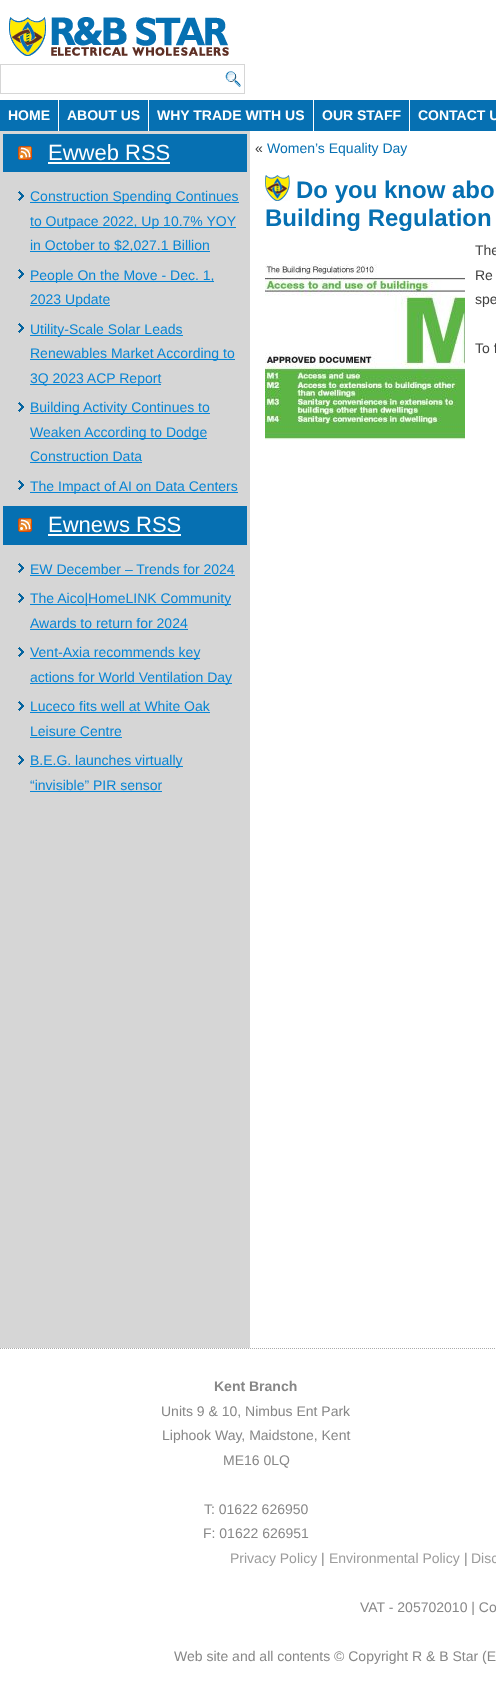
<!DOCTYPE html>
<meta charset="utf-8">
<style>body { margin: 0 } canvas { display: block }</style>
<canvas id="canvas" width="496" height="1693"></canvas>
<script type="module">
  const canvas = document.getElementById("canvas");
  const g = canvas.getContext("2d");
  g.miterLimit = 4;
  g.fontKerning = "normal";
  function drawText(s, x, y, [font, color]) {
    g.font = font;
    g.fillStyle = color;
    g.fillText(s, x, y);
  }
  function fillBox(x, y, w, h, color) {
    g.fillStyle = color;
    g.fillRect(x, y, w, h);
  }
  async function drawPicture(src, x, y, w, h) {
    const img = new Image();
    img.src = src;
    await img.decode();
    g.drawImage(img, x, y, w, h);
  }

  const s1 = ["bold 14px Liberation Sans", "#FFFFFF"];
  const s2 = ["22px Liberation Sans", "#FFFFFF"];
  const s3 = ["14px Liberation Sans", "#0885D4"];
  const s4 = ["14px Liberation Sans", "#404040"];
  const s5 = ["14px Liberation Sans", "#0670B2"];
  const s6 = ["bold 24px Liberation Sans", "#0670B2"];
  const s7 = ["bold 14px Liberation Sans", "#878787"];
  const s8 = ["14px Liberation Sans", "#878787"];
  const s9 = ["14px Liberation Sans", "#9C9C9C"];

  fillBox(0, 0, 496, 1693, "#FFFFFF");
  await drawPicture("pic1.png", 9, 17, 220, 39);
  g.strokeStyle = "#D6D6D6";
  g.strokeRect(0.5, 64.5, 244, 29);
  await drawPicture("pic2.png", 225, 71, 16, 16);
  fillBox(0, 100, 496, 31, "#0670B2");
  drawText("HOME", 8, 120, s1);
  fillBox(58, 100, 1, 31, "#FFFFFF");
  drawText("ABOUT US", 67, 120, s1);
  fillBox(148, 100, 1, 31, "#FFFFFF");
  drawText("WHY TRADE WITH US", 157, 120, s1);
  fillBox(313, 100, 1, 31, "#FFFFFF");
  drawText("OUR STAFF", 322, 120, s1);
  fillBox(409, 100, 1, 31, "#FFFFFF");
  drawText("CONTACT U", 418, 120, s1);
  fillBox(0, 131, 250, 1217, "#D6D6D6");
  fillBox(3, 134, 244, 38, "#0670B2");
  await drawPicture("pic3.png", 18, 146, 14, 14);
  drawText("Ewweb RSS", 48, 160, s2);
  fillBox(48, 162, 122, 2, "#FFFFFF");
  await drawPicture("pic4.png", 18, 191, 6, 10);
  fillBox(30, 202, 209, 1, "#0885D4");
  drawText("Construction Spending Continues", 30, 201, s3);
  fillBox(30, 227, 206, 1, "#0885D4");
  drawText("to Outpace 2022, Up 10.7% YOY", 30, 226, s3);
  fillBox(30, 251, 180, 1, "#0885D4");
  drawText("in October to $2,027.1 Billion", 30, 250, s3);
  await drawPicture("pic4.png", 18, 269, 6, 10);
  fillBox(30, 281, 184, 1, "#0885D4");
  drawText("People On the Move - Dec. 1,", 30, 280, s3);
  fillBox(30, 305, 80, 1, "#0885D4");
  drawText("2023 Update", 30, 304, s3);
  await drawPicture("pic4.png", 18, 323, 6, 10);
  fillBox(30, 335, 153, 1, "#0885D4");
  drawText("Utility-Scale Solar Leads", 30, 334, s3);
  fillBox(30, 359, 205, 1, "#0885D4");
  drawText("Renewables Market According to", 30, 358, s3);
  fillBox(30, 384, 131, 1, "#0885D4");
  drawText("3Q 2023 ACP Report", 30, 383, s3);
  await drawPicture("pic4.png", 18, 402, 6, 10);
  fillBox(30, 413, 180, 1, "#0885D4");
  drawText("Building Activity Continues to", 30, 412, s3);
  fillBox(30, 438, 177, 1, "#0885D4");
  drawText("Weaken According to Dodge", 30, 437, s3);
  drawText("Construction Data", 30, 461, s3);
  fillBox(30, 462, 112, 1, "#0885D4");
  await drawPicture("pic4.png", 18, 480, 6, 10);
  fillBox(30, 492, 208, 1, "#0885D4");
  drawText("The Impact of AI on Data Centers", 30, 491, s3);
  fillBox(3, 506, 244, 39, "#0670B2");
  await drawPicture("pic3.png", 18, 518, 14, 14);
  drawText("Ewnews RSS", 48, 532, s2);
  fillBox(48, 534, 133, 2, "#FFFFFF");
  await drawPicture("pic4.png", 18, 563, 6, 10);
  drawText("EW December – Trends for 2024", 30, 574, s3);
  fillBox(30, 575, 205, 1, "#0885D4");
  await drawPicture("pic4.png", 18, 593, 6, 10);
  fillBox(30, 604, 201, 1, "#0885D4");
  drawText("The Aico|HomeLINK Community", 30, 603, s3);
  drawText("Awards to return for 2024", 30, 628, s3);
  fillBox(30, 629, 158, 1, "#0885D4");
  await drawPicture("pic4.png", 18, 647, 6, 10);
  fillBox(30, 658, 170, 1, "#0885D4");
  drawText("Vent-Axia recommends key", 30, 657, s3);
  fillBox(30, 683, 202, 1, "#0885D4");
  drawText("actions for World Ventilation Day", 30, 682, s3);
  await drawPicture("pic4.png", 18, 701, 6, 10);
  drawText("Luceco fits well at White Oak", 30, 711, s3);
  fillBox(30, 712, 180, 1, "#0885D4");
  drawText("Leisure Centre", 30, 736, s3);
  fillBox(30, 737, 92, 1, "#0885D4");
  await drawPicture("pic4.png", 18, 755, 6, 10);
  fillBox(30, 766, 153, 1, "#0885D4");
  drawText("B.E.G. launches virtually", 30, 765, s3);
  drawText("“invisible” PIR sensor", 30, 790, s3);
  fillBox(30, 791, 132, 1, "#0885D4");
  drawText("«", 255, 153, s4);
  drawText("Women’s Equality Day", 267, 153, s5);
  await drawPicture("pic5.png", 265, 175, 25, 26);
  drawText("Do you know abo", 296, 198, s6);
  drawText("Building Regulation", 265, 226, s6);
  drawText("The", 475, 255, s4);
  await drawPicture("pic6.png", 265, 264, 200, 176);
  drawText("Re", 475, 280, s4);
  drawText("spe", 475, 304, s4);
  drawText("To f", 475, 353, s4);
  g.beginPath();
  g.moveTo(0, 1348.5);
  g.lineTo(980, 1348.5);
  g.strokeStyle = "#ABABAB";
  g.setLineDash([1, 1]);
  g.stroke();
  drawText("Kent Branch", 214, 1391, s7);
  drawText("Units 9 & 10, Nimbus Ent Park", 161, 1416, s8);
  drawText("Liphook Way, Maidstone, Kent", 162, 1440, s8);
  drawText("ME16 0LQ", 223, 1465, s8);
  drawText("T: 01622 626950", 204, 1514, s8);
  drawText("F: 01622 626951", 203, 1538, s8);
  drawText("Privacy Policy", 230, 1563, s9);
  drawText("|", 321, 1563, s8);
  drawText("Environmental Policy", 329, 1563, s9);
  drawText("|", 464, 1563, s8);
  drawText("Disc", 471, 1563, s9);
  drawText("VAT - 205702010 | Co", 360, 1612, s8);
  drawText("Web site and all contents © Copyright R & B Star (E", 174, 1661, s8);
</script>
